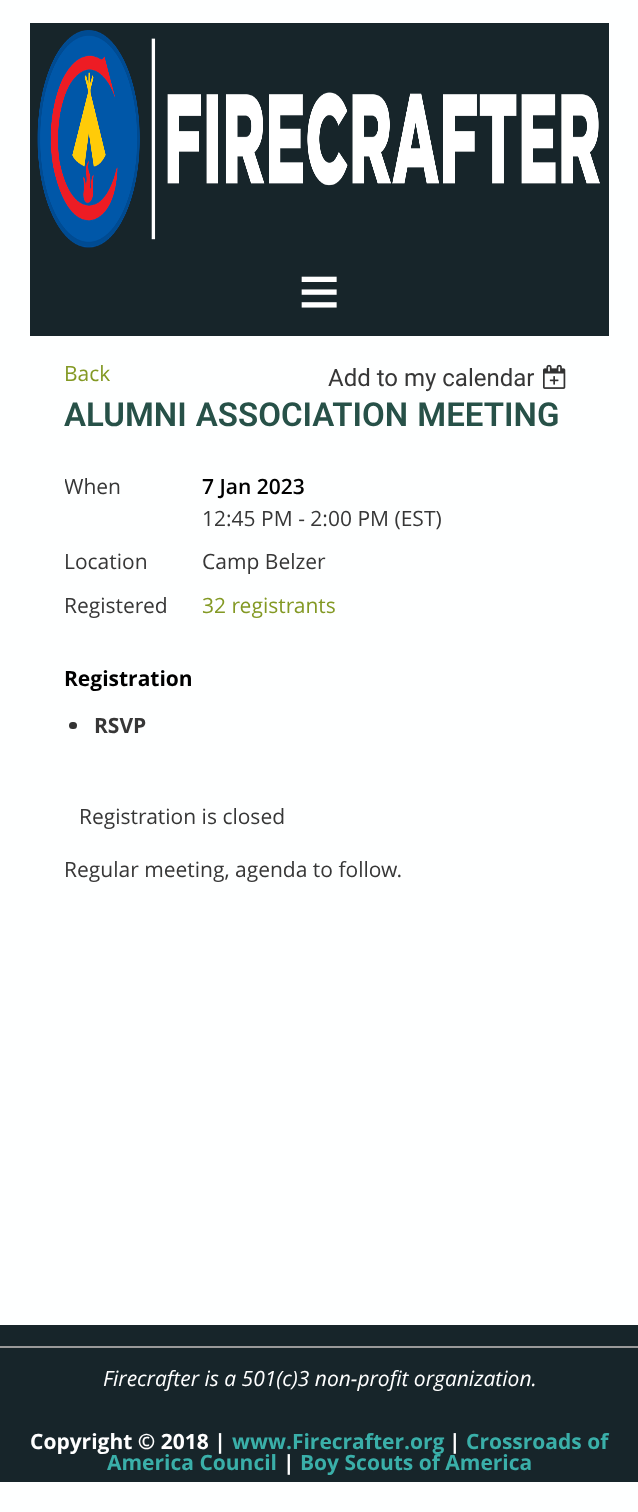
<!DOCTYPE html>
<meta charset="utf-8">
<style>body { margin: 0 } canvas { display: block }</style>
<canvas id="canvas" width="638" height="1512"></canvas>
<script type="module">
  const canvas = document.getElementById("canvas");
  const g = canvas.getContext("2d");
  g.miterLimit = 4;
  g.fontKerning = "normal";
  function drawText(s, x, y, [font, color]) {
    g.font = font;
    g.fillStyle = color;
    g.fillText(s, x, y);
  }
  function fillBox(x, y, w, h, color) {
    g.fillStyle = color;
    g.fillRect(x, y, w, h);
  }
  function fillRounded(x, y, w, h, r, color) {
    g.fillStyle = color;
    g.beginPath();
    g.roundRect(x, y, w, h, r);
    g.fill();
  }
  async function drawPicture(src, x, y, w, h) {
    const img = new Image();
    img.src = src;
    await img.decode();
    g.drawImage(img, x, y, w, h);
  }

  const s1 = ["bold 75px Liberation Serif", "#FFFFFF"];
  const s2 = ["21px Open Sans", "#839924"];
  const s3 = ["24px Roboto", "#373737"];
  const s4 = ["600 33px Roboto", "#275148"];
  const s5 = ["21px Open Sans", "#373737"];
  const s6 = ["600 21px Open Sans", "#000000"];
  const s7 = ["bold 21px Open Sans", "#000000"];
  const s8 = ["bold 21px Open Sans", "#373737"];
  const s9 = ["italic 21px Open Sans", "#FFFFFF"];
  const s10 = ["bold 21px Open Sans", "#FFFFFF"];
  const s11 = ["bold 21px Open Sans", "#3AAFA9"];

  fillBox(0, 0, 638, 1512, "#FEFFFF");
  fillBox(30, 23, 579, 313, "#17252A");
  await drawPicture("pic1.png", 37, 30, 563, 218);
  drawText("≡", 298, 317, s1);
  drawText("Back", 64, 381, s2);
  drawText("Add to my calendar", 328, 386, s3);
  await drawPicture("pic2.png", 543, 364, 23, 25);
  g.wordSpacing = "1px";
  drawText("ALUMNI ASSOCIATION MEETING", 64, 426, s4);
  g.save();
  g.beginPath();
  g.rect(65, 359, 510, 615);
  g.clip();
  g.wordSpacing = "0px";
  drawText("When", 64, 494, s5);
  g.restore();
  g.wordSpacing = "0px";
  drawText("7 Jan 2023", 202, 494, s6);
  drawText("12:45 PM - 2:00 PM (EST)", 202, 526, s5);
  drawText("Location", 64, 569, s5);
  drawText("Camp Belzer", 202, 569, s5);
  drawText("Registered", 64, 613, s5);
  drawText("32 registrants", 202, 613, s2);
  drawText("Registration", 64, 686, s7);
  fillRounded(69, 722, 8, 7, 3.5, "#333333");
  drawText("RSVP", 94, 733, s8);
  drawText("Registration is closed", 79, 824, s5);
  drawText("Regular meeting, agenda to follow.", 64, 877, s5);
  fillBox(0, 1325, 638, 157, "#17252A");
  fillBox(0, 1346, 638, 2, "#999999");
  drawText("Firecrafter is a 501(c)3 non-profit organization.", 103, 1386, s9);
  drawText("Copyright © 2018 |", 30, 1449, s10);
  drawText("www.Firecrafter.org", 232, 1449, s11);
  drawText("|", 449, 1449, s10);
  drawText("Crossroads of", 466, 1449, s11);
  drawText("America Council", 107, 1470, s11);
  drawText("|", 283, 1470, s10);
  drawText("Boy Scouts of America", 300, 1470, s11);
</script>
